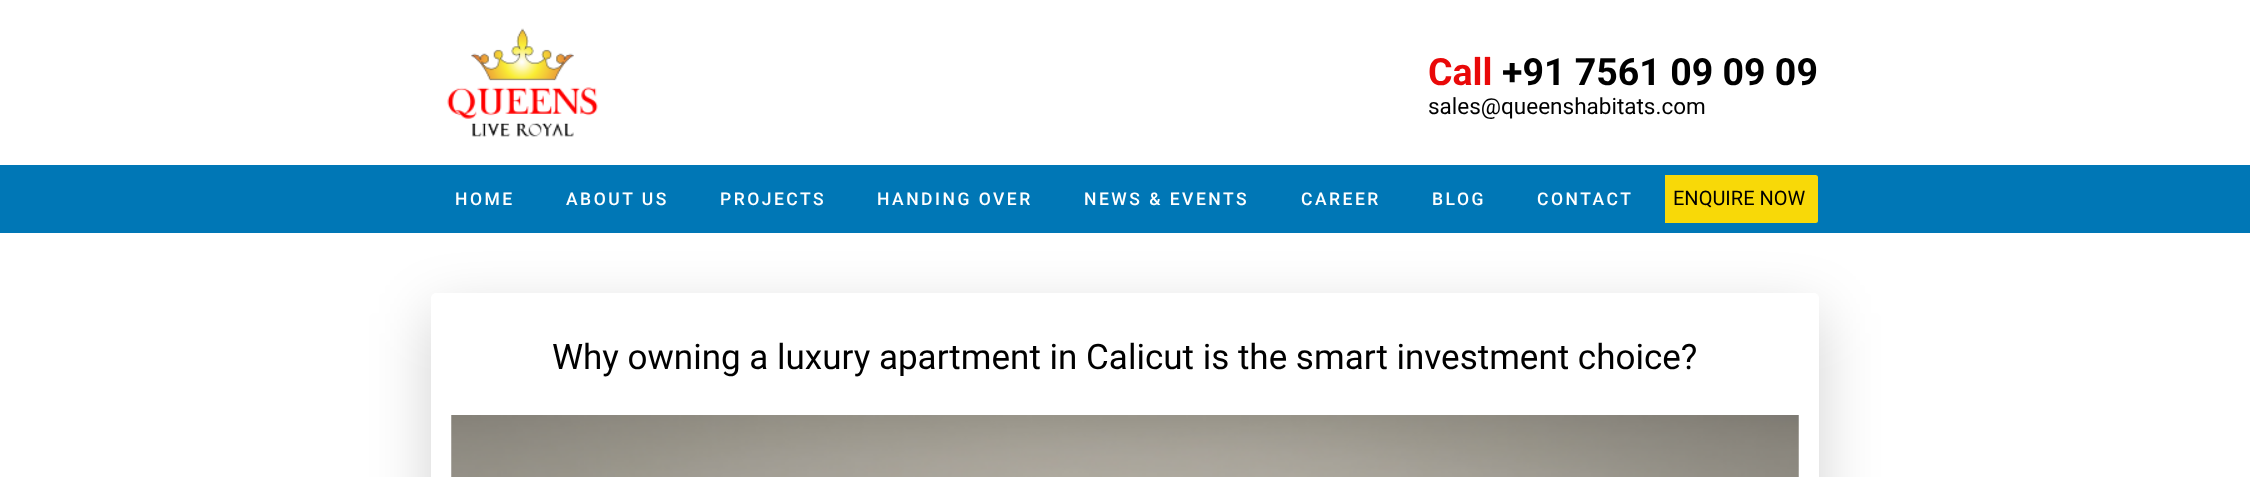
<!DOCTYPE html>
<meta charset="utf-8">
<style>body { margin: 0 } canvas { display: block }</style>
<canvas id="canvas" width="2250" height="477"></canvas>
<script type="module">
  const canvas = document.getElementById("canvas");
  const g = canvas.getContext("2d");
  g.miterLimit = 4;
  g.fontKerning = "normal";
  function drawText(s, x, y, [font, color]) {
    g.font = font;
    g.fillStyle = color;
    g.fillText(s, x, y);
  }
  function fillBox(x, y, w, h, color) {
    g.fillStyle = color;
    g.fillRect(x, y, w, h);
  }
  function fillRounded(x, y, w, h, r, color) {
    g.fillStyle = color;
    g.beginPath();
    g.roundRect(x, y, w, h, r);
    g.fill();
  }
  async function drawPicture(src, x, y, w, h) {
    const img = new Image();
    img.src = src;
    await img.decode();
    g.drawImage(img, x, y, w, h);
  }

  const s1 = ["bold 37.5px Roboto", "#E90909"];
  const s2 = ["bold 37.5px Roboto", "#000000"];
  const s3 = ["22.5px Roboto", "#000000"];
  const s4 = ["500 17.5px Roboto", "#FFFFFF"];
  const s5 = ["20px Roboto", "#000000"];
  const s6 = ["35px Roboto", "#000000"];

  fillBox(0, 0, 2250, 477, "#FFFFFF");
  await drawPicture("pic1.png", 447, 28, 151, 109);
  drawText("Call", 1428, 85, s1);
  drawText("+91 7561 09 09 09", 1502, 85, s2);
  drawText("sales@queenshabitats.com", 1428, 114, s3);
  fillBox(0, 165, 2250, 68, "#0077B6");
  g.letterSpacing = "2.5px";
  drawText("HOME", 455, 205, s4);
  drawText("ABOUT US", 566, 205, s4);
  drawText("PROJECTS", 720, 205, s4);
  drawText("HANDING OVER", 877, 205, s4);
  drawText("NEWS & EVENTS", 1084, 205, s4);
  drawText("CAREER", 1301, 205, s4);
  drawText("BLOG", 1432, 205, s4);
  fillRounded(1661, 175, 157, 48, 2.5, "#F8D908");
  fillBox(1661, 175, 4, 48, "#0077B6");
  drawText("CONTACT", 1537, 205, s4);
  g.letterSpacing = "0px";
  drawText("ENQUIRE NOW", 1673, 205, s5);
  g.fillStyle = "rgba(0, 0, 0, 0.18)";
  g.filter = "blur(30px)";
  g.beginPath();
  g.roundRect(431, 313, 1388, 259, 5);
  g.fill();
  g.filter = "none";
  fillRounded(431, 293, 1388, 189, 5, "#FFFFFF");
  drawText("Why owning a luxury apartment in Calicut is the smart investment choice?", 552, 369, s6);
  await drawPicture("pic2.png", 451, 415, 1348, 62);
</script>
